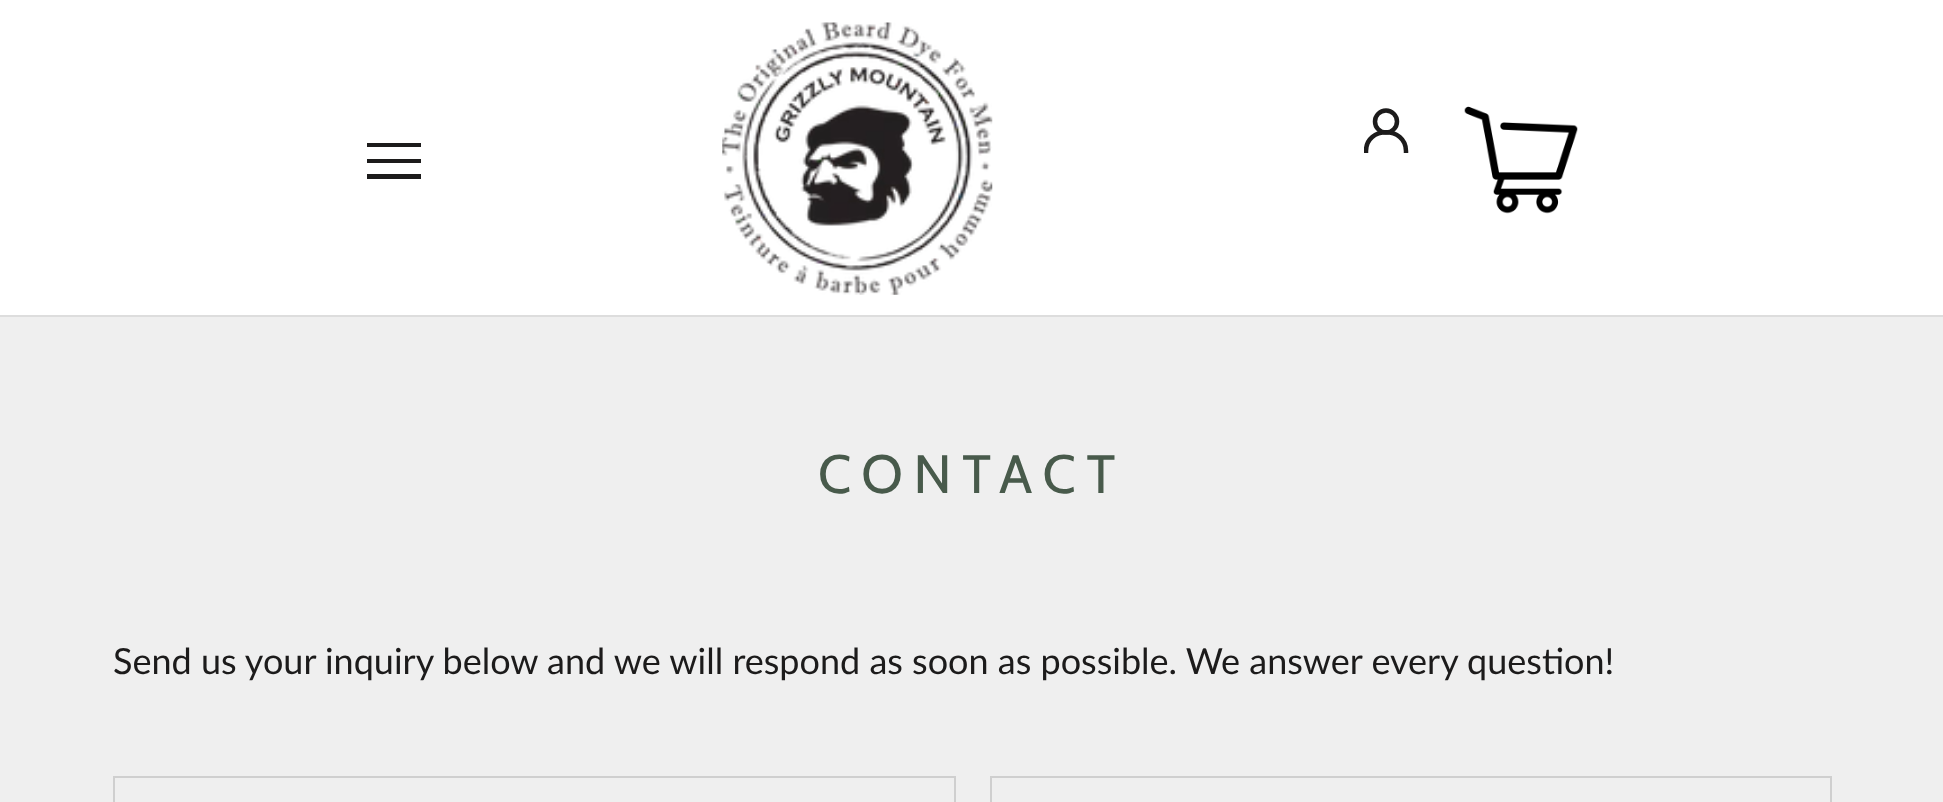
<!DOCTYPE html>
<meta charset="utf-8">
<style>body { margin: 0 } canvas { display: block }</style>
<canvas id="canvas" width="1943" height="802"></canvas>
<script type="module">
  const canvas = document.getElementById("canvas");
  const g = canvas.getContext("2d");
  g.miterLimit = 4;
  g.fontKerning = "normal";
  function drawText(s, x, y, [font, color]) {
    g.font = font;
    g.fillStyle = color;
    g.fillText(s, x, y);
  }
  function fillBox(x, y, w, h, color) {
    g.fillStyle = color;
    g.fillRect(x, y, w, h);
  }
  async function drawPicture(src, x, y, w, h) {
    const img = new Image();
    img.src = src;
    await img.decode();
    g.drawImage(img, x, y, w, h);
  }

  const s1 = ["54px Cabin", "#485A4B"];
  const s2 = ["36px Lato", "#1C1B1B"];

  fillBox(0, 0, 1943, 802, "#EFEFEF");
  fillBox(0, 0, 1943, 315, "#FFFFFF");
  fillBox(0, 315, 1943, 2, "#DDDDDD");
  g.fillStyle = "#1C1B1B";
  g.beginPath();
  g.moveTo(367, 179);
  g.lineTo(367, 174);
  g.lineTo(421, 174);
  g.lineTo(421, 179);
  g.closePath();
  g.moveTo(367, 159);
  g.lineTo(421, 159);
  g.lineTo(421, 163);
  g.lineTo(367, 163);
  g.closePath();
  g.moveTo(367, 143);
  g.lineTo(421, 143);
  g.lineTo(421, 147);
  g.lineTo(367, 147);
  g.closePath();
  g.fill();
  await drawPicture("pic1.png", 722, 22, 271, 273);
  g.save();
  g.beginPath();
  g.rect(1364, 108, 45, 45);
  g.clip();
  g.beginPath();
  g.moveTo(1366, 151);
  g.bezierCurveTo(1366, 126, 1406, 126, 1406, 151);
  g.strokeStyle = "#1C1B1B";
  g.lineWidth = 4.5;
  g.lineCap = "square";
  g.stroke();
  g.restore();
  g.beginPath();
  g.arc(1386, 121.5, 11, 0, Math.PI * 2);
  g.strokeStyle = "#1C1B1B";
  g.lineWidth = 4.5;
  g.stroke();
  await drawPicture("pic2.png", 1464, 106, 114, 108);
  g.letterSpacing = "10.75px";
  drawText("CONTACT", 818, 493, s1);
  g.letterSpacing = "0px";
  drawText("Send us your inquiry below and we will respond as soon as possible. We answer every question!", 113, 674, s2);
  g.strokeStyle = "#CFCFCF";
  g.lineWidth = 2;
  g.strokeRect(114, 777, 841, 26);
  g.strokeRect(991, 777, 840, 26);
</script>
